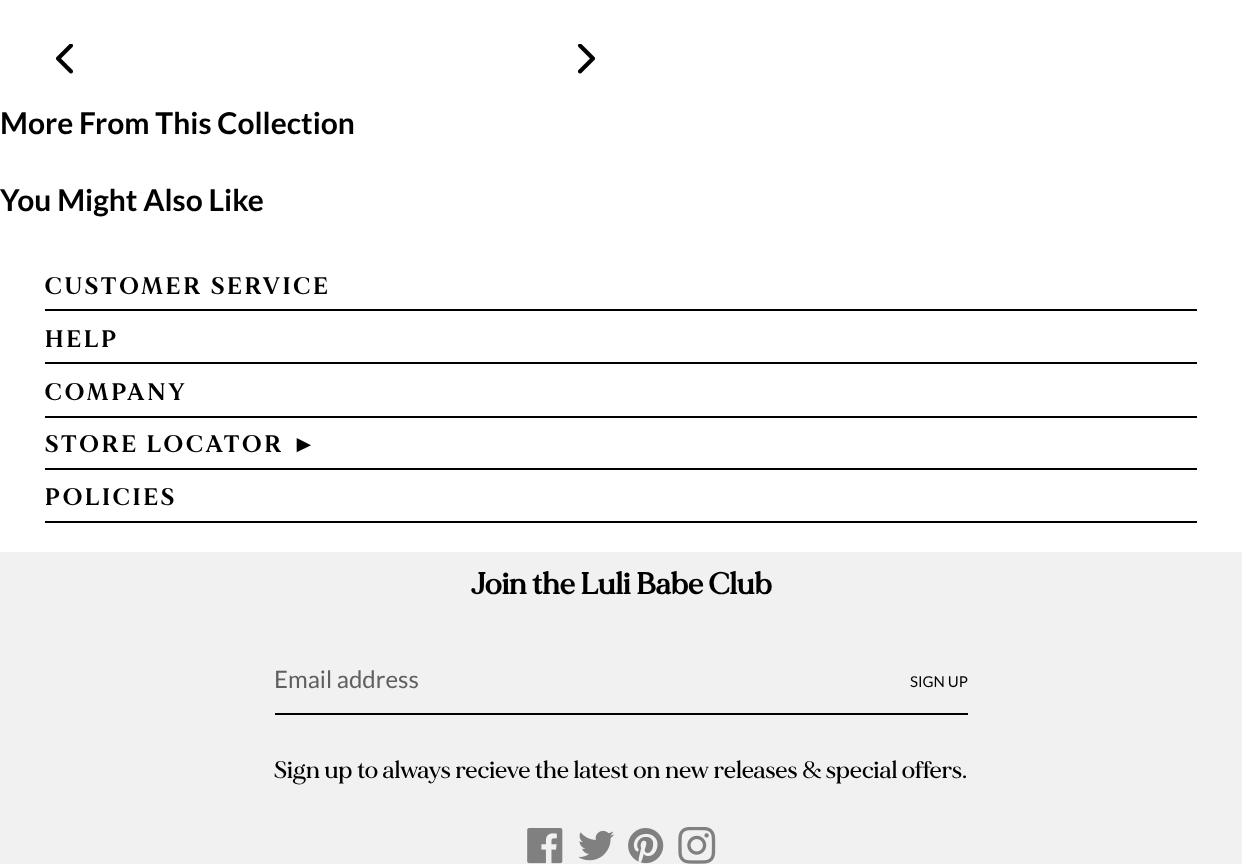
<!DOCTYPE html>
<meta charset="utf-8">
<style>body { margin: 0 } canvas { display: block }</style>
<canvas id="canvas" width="1242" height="864"></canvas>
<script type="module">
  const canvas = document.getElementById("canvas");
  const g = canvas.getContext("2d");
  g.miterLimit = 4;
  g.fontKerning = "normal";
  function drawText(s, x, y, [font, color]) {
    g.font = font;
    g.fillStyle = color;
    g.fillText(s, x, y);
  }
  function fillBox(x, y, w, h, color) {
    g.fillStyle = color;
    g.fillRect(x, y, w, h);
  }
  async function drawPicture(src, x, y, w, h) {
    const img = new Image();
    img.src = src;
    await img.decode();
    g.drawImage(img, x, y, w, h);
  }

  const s1 = ["bold 30px Lato", "#000000"];
  const s2 = ["bold 24px 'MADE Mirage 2'", "#000000"];
  const s3 = ["bold 24px Liberation Serif", "#000000"];
  const s4 = ["bold 30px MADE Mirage", "#000000"];
  const s5 = ["24px Lato", "#606060"];
  const s6 = ["15px Lato", "#000000"];
  const s7 = ["500 24px MADE Mirage", "#000000"];

  fillBox(0, 0, 1242, 864, "#FFFFFF");
  await drawPicture("pic1.png", 56, 44, 17, 30);
  await drawPicture("pic2.png", 577, 44, 18, 30);
  drawText("More From This Collection", 0, 134, s1);
  drawText("You Might Also Like", 0, 211, s1);
  fillBox(45, 309, 1152, 2, "#000000");
  g.letterSpacing = "3px";
  drawText("CUSTOMER SERVICE", 45, 294, s2);
  fillBox(45, 362, 1152, 2, "#000000");
  drawText("HELP", 45, 347, s2);
  fillBox(45, 416, 1152, 2, "#000000");
  drawText("COMPANY", 45, 400, s2);
  fillBox(45, 468, 1152, 2, "#000000");
  drawText("STORE LOCATOR", 45, 452, s2);
  drawText("►", 292, 452, s3);
  fillBox(45, 521, 1152, 2, "#000000");
  drawText("POLICIES", 45, 505, s2);
  fillBox(0, 552, 1242, 312, "#F1F1F1");
  g.letterSpacing = "0px";
  drawText("Join the Luli Babe Club", 471, 594, s4);
  fillBox(275, 713, 693, 2, "#000000");
  drawText("Email address", 274, 688, s5);
  drawText("SIGN UP", 910, 687, s6);
  drawText("Sign up to always recieve the latest on new releases & special offers.", 274, 778, s7);
  await drawPicture("pic3.png", 527, 828, 36, 36);
  await drawPicture("pic4.png", 578, 830, 36, 31);
  await drawPicture("pic5.png", 628, 828, 36, 36);
  await drawPicture("pic6.png", 678, 827, 38, 37);
</script>
